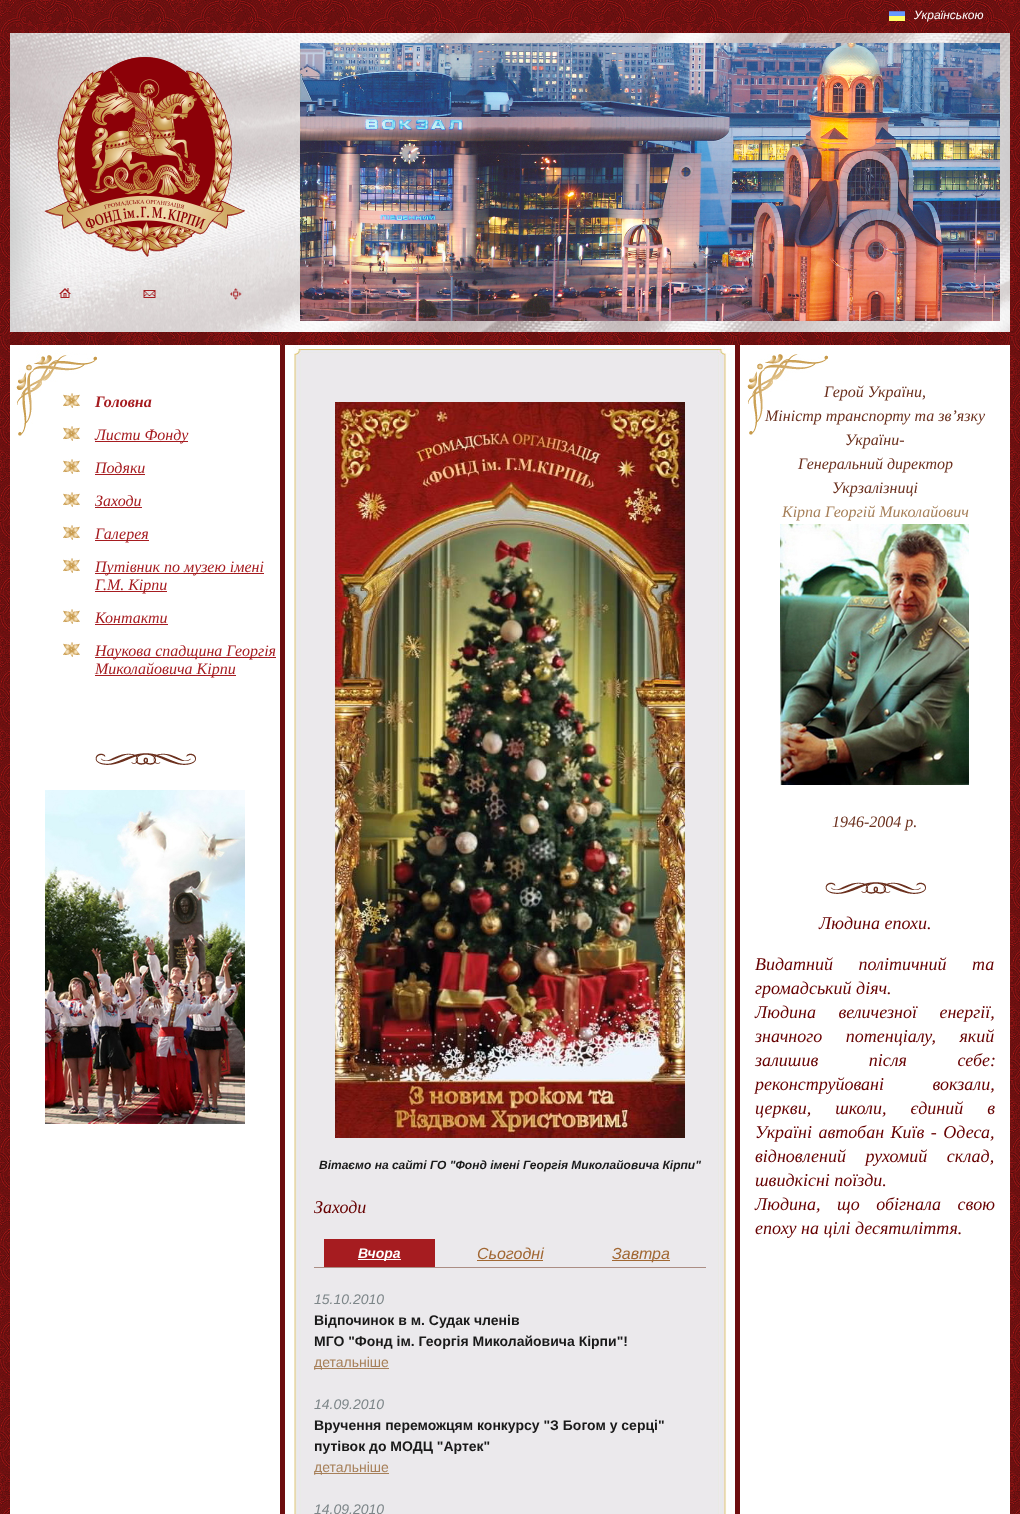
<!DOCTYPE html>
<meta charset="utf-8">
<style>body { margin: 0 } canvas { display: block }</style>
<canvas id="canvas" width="1020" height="1514"></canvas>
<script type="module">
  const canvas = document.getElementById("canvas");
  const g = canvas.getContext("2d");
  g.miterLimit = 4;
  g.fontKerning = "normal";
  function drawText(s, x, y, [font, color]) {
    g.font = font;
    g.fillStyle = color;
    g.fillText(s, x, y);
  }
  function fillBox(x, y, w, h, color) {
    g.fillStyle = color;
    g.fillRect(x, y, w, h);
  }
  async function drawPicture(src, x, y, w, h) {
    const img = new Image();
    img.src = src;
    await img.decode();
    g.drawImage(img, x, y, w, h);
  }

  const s1 = ["italic 12px Liberation Sans", "#FFFFFF"];
  const s2 = ["italic bold 16px Liberation Serif", "#A61C20"];
  const s3 = ["italic 16px Liberation Serif", "#A61C20"];
  const s4 = ["italic bold 12px Liberation Sans", "#191919"];
  const s5 = ["italic 18px Liberation Serif", "#660000"];
  const s6 = ["italic bold 14px Liberation Sans", "#FFFFFF"];
  const s7 = ["italic 16px Liberation Sans", "#A16733"];
  const s8 = ["italic 14px Liberation Sans", "#7D8689"];
  const s9 = ["bold 14px Liberation Sans", "#191919"];
  const s10 = ["14px Liberation Sans", "#A7805A"];
  const s11 = ["italic 16px Liberation Serif", "#6B301E"];
  const s12 = ["italic 16px Liberation Serif", "#A7805A"];

  fillBox(0, 0, 1020, 1514, "#FFFFFF");
  await drawPicture("pic1.png", 0, 0, 1020, 1514);
  await drawPicture("pic2.png", 889, 11, 16, 10);
  drawText("Українською", 914, 19, s1);
  await drawPicture("pic3.png", 10, 33, 1000, 299);
  await drawPicture("pic4.png", 45, 57, 200, 199);
  await drawPicture("pic5.png", 300, 43, 700, 278);
  await drawPicture("pic6.png", 59, 288, 12, 10);
  await drawPicture("pic7.png", 143, 290, 13, 8);
  await drawPicture("pic8.png", 230, 288, 12, 12);
  fillBox(10, 345, 270, 1169, "#FFFFFF");
  await drawPicture("pic9.png", 63, 393, 17, 15);
  drawText("Головна", 95, 407, s2);
  await drawPicture("pic9.png", 63, 426, 17, 15);
  fillBox(95, 441, 93, 1, "#A61C20");
  drawText("Листи Фонду", 95, 440, s3);
  await drawPicture("pic9.png", 63, 459, 17, 15);
  drawText("Подяки", 95, 473, s3);
  fillBox(95, 474, 50, 1, "#A61C20");
  await drawPicture("pic9.png", 63, 492, 17, 15);
  drawText("Заходи", 95, 506, s3);
  fillBox(95, 507, 47, 1, "#A61C20");
  await drawPicture("pic9.png", 63, 525, 17, 15);
  fillBox(95, 540, 54, 1, "#A61C20");
  drawText("Галерея", 95, 539, s3);
  await drawPicture("pic9.png", 63, 558, 17, 15);
  fillBox(95, 573, 169, 1, "#A61C20");
  drawText("Путівник по музею імені", 95, 572, s3);
  fillBox(95, 591, 72, 1, "#A61C20");
  drawText("Г.М. Кірпи", 95, 590, s3);
  await drawPicture("pic9.png", 63, 609, 17, 15);
  drawText("Контакти", 95, 623, s3);
  fillBox(95, 624, 73, 1, "#A61C20");
  await drawPicture("pic9.png", 63, 642, 17, 15);
  fillBox(95, 657, 181, 1, "#A61C20");
  drawText("Наукова спадщина Георгія", 95, 656, s3);
  fillBox(95, 675, 141, 1, "#A61C20");
  drawText("Миколайовича Кірпи", 95, 674, s3);
  await drawPicture("pic10.png", 95, 753, 101, 12);
  await drawPicture("pic11.png", 45, 790, 200, 334);
  fillBox(285, 345, 450, 1169, "#FFFFFF");
  await drawPicture("pic12.png", 294, 355, 438, 1159);
  await drawPicture("pic13.png", 335, 402, 350, 736);
  drawText("Вітаємо на сайті ГО \"Фонд імені Георгія Миколайовича Кірпи\"", 319, 1169, s4);
  drawText("Заходи", 314, 1213, s5);
  fillBox(314, 1267, 392, 1, "#AB8D84");
  fillBox(324, 1239, 111, 28, "#A61C20");
  fillBox(358, 1259, 43, 1, "#FFFFFF");
  drawText("Вчора", 358, 1258, s6);
  drawText("Сьогодні", 477, 1259, s7);
  fillBox(477, 1260, 66, 1, "#A16733");
  fillBox(612, 1260, 58, 1, "#A16733");
  drawText("Завтра", 612, 1259, s7);
  drawText("15.10.2010", 314, 1304, s8);
  drawText("Відпочинок в м. Судак членів", 314, 1325, s9);
  drawText("МГО \"Фонд ім. Георгія Миколайовича Кірпи\"!", 314, 1346, s9);
  fillBox(314, 1368, 75, 1, "#A7805A");
  drawText("детальніше", 314, 1367, s10);
  drawText("14.09.2010", 314, 1409, s8);
  drawText("Вручення переможцям конкурсу \"З Богом у серці\"", 314, 1430, s9);
  drawText("путівок до МОДЦ \"Артек\"", 314, 1451, s9);
  fillBox(314, 1473, 75, 1, "#A7805A");
  drawText("детальніше", 314, 1472, s10);
  drawText("14.09.2010", 314, 1514, s8);
  await drawPicture("pic14.png", 73, 350, 14, 5);
  fillBox(280, 345, 5, 1169, "#6E0E0F");
  await drawPicture("pic15.png", 16, 350, 81, 86);
  await drawPicture("pic16.png", 293, 345, 439, 10);
  fillBox(740, 345, 270, 1169, "#FFFFFF");
  fillBox(735, 345, 5, 1169, "#6E0E0F");
  drawText("Герой України,", 824, 397, s11);
  drawText("Міністр транспорту та зв’язку", 765, 421, s11);
  await drawPicture("pic17.png", 747, 354, 81, 81);
  drawText("України-", 845, 445, s11);
  drawText("Генеральний директор", 798, 469, s11);
  drawText("Укрзалізниці", 832, 493, s11);
  drawText("Кірпа Георгій Миколайович", 782, 517, s12);
  await drawPicture("pic18.png", 780, 524, 189, 261);
  drawText("1946-2004 р.", 832, 827, s11);
  await drawPicture("pic10.png", 825, 882, 101, 12);
  drawText("Людина епохи.", 819, 929, s5);
  g.wordSpacing = "21px";
  drawText("Видатний політичний та", 755, 970, s5);
  g.wordSpacing = "0px";
  drawText("громадський діяч.", 755, 994, s5);
  g.wordSpacing = "18px";
  drawText("Людина величезної енергії,", 755, 1018, s5);
  g.wordSpacing = "19px";
  drawText("значного потенціалу, який", 755, 1042, s5);
  g.wordSpacing = "46px";
  drawText("залишив після себе:", 755, 1066, s5);
  g.wordSpacing = "44px";
  drawText("реконструйовані вокзали,", 755, 1090, s5);
  g.wordSpacing = "19.5px";
  drawText("церкви, школи, єдиний в", 755, 1114, s5);
  g.wordSpacing = "2px";
  drawText("Україні автобан Київ - Одеса,", 755, 1138, s5);
  g.wordSpacing = "15px";
  drawText("відновлений рухомий склад,", 755, 1162, s5);
  g.wordSpacing = "0px";
  drawText("швидкісні поїзди.", 755, 1186, s5);
  g.wordSpacing = "12px";
  drawText("Людина, що обігнала свою", 755, 1210, s5);
  g.wordSpacing = "0px";
  drawText("епоху на цілі десятиліття.", 755, 1234, s5);
</script>
